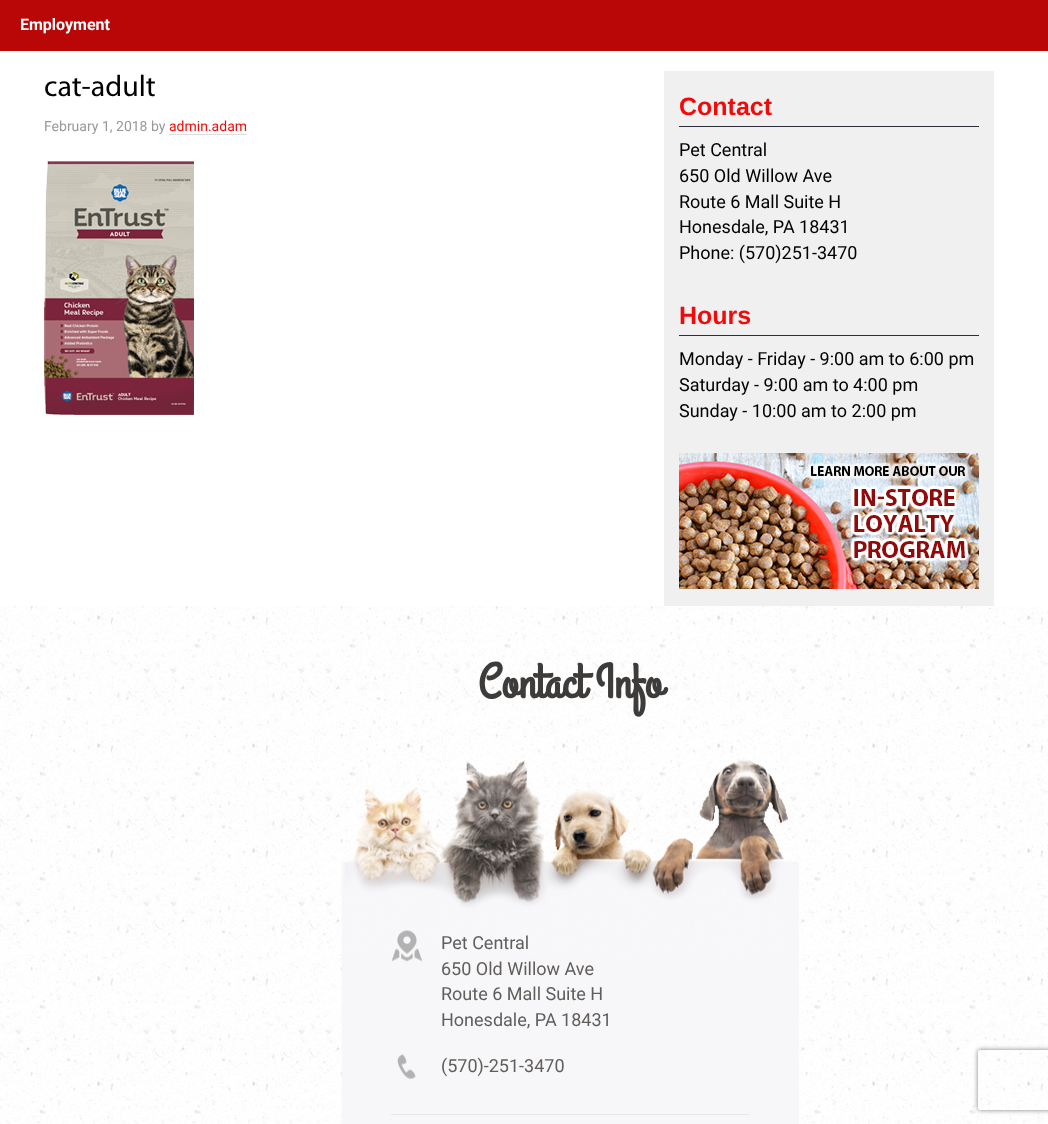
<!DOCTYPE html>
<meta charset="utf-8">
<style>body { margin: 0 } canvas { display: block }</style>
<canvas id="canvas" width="1048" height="1124"></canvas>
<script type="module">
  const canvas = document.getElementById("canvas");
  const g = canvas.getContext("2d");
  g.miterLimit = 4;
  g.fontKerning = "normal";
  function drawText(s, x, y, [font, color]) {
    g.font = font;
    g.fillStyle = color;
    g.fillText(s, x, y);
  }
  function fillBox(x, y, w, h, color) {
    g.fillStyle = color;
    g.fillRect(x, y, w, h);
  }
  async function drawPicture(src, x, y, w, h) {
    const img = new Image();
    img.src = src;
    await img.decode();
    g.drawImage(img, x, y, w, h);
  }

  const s1 = ["bold 16px Roboto", "#FFFFFF"];
  const s2 = ["30px Myriad", "#000000"];
  const s3 = ["14px Roboto", "#999999"];
  const s4 = ["14px Roboto", "#F20A0A"];
  const s5 = ["bold 25px Liberation Sans", "#F20A0A"];
  const s6 = ["18px Roboto", "#000000"];
  const s7 = ["bold 48px Grand Hotel", "#3E3C3A"];
  const s8 = ["18px Roboto", "#605D5A"];

  fillBox(0, 0, 1048, 1124, "#FFFFFF");
  fillBox(0, 0, 1048, 51, "#B90707");
  drawText("Employment", 20, 30, s1);
  drawText("cat-adult", 44, 96, s2);
  drawText("February 1, 2018 by", 44, 131, s3);
  drawText("admin.adam", 169, 131, s4);
  fillBox(169, 134, 78, 1, "#DDDDDD");
  await drawPicture("pic1.png", 44, 161, 150, 254);
  fillBox(664, 71, 330, 535, "#F0F0F0");
  fillBox(679, 126, 300, 1, "#2C2C39");
  drawText("Contact", 679, 115, s5);
  drawText("Pet Central", 679, 156, s6);
  drawText("650 Old Willow Ave", 679, 182, s6);
  drawText("Route 6 Mall Suite H", 679, 208, s6);
  drawText("Honesdale, PA 18431", 679, 233, s6);
  drawText("Phone: (570)251-3470", 679, 259, s6);
  fillBox(679, 335, 300, 1, "#2C2C39");
  drawText("Hours", 679, 324, s5);
  drawText("Monday - Friday - 9:00 am to 6:00 pm", 679, 365, s6);
  drawText("Saturday - 9:00 am to 4:00 pm", 679, 391, s6);
  drawText("Sunday - 10:00 am to 2:00 pm", 679, 417, s6);
  await drawPicture("pic2.png", 679, 453, 300, 136);
  await drawPicture("pic3.png", 0, 606, 1048, 518);
  drawText("Contact Info", 478, 697, s7);
  await drawPicture("pic4.png", 341, 760, 458, 364);
  await drawPicture("pic5.png", 392, 930, 30, 32);
  drawText("Pet Central", 441, 949, s8);
  drawText("650 Old Willow Ave", 441, 975, s8);
  drawText("Route 6 Mall Suite H", 441, 1000, s8);
  drawText("Honesdale, PA 18431", 441, 1026, s8);
  await drawPicture("pic6.png", 397, 1054, 19, 25);
  drawText("(570)-251-3470", 441, 1072, s8);
  fillBox(391, 1114, 358, 1, "#E6E6E6");
  g.save();
  g.beginPath();
  g.moveTo(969, 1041);
  g.lineTo(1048, 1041);
  g.lineTo(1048, 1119);
  g.lineTo(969, 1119);
  g.closePath();
  g.moveTo(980, 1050);
  g.lineTo(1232, 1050);
  g.bezierCurveTo(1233, 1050, 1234, 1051, 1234, 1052);
  g.lineTo(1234, 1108);
  g.bezierCurveTo(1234, 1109, 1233, 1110, 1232, 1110);
  g.lineTo(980, 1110);
  g.bezierCurveTo(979, 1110, 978, 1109, 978, 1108);
  g.lineTo(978, 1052);
  g.bezierCurveTo(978, 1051, 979, 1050, 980, 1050);
  g.closePath();
  g.clip("evenodd");
  g.fillStyle = "#808080";
  g.filter = "blur(2.5px)";
  g.beginPath();
  g.roundRect(978, 1050, 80, 60, 2);
  g.fill();
  g.filter = "none";
  g.restore();
</script>
